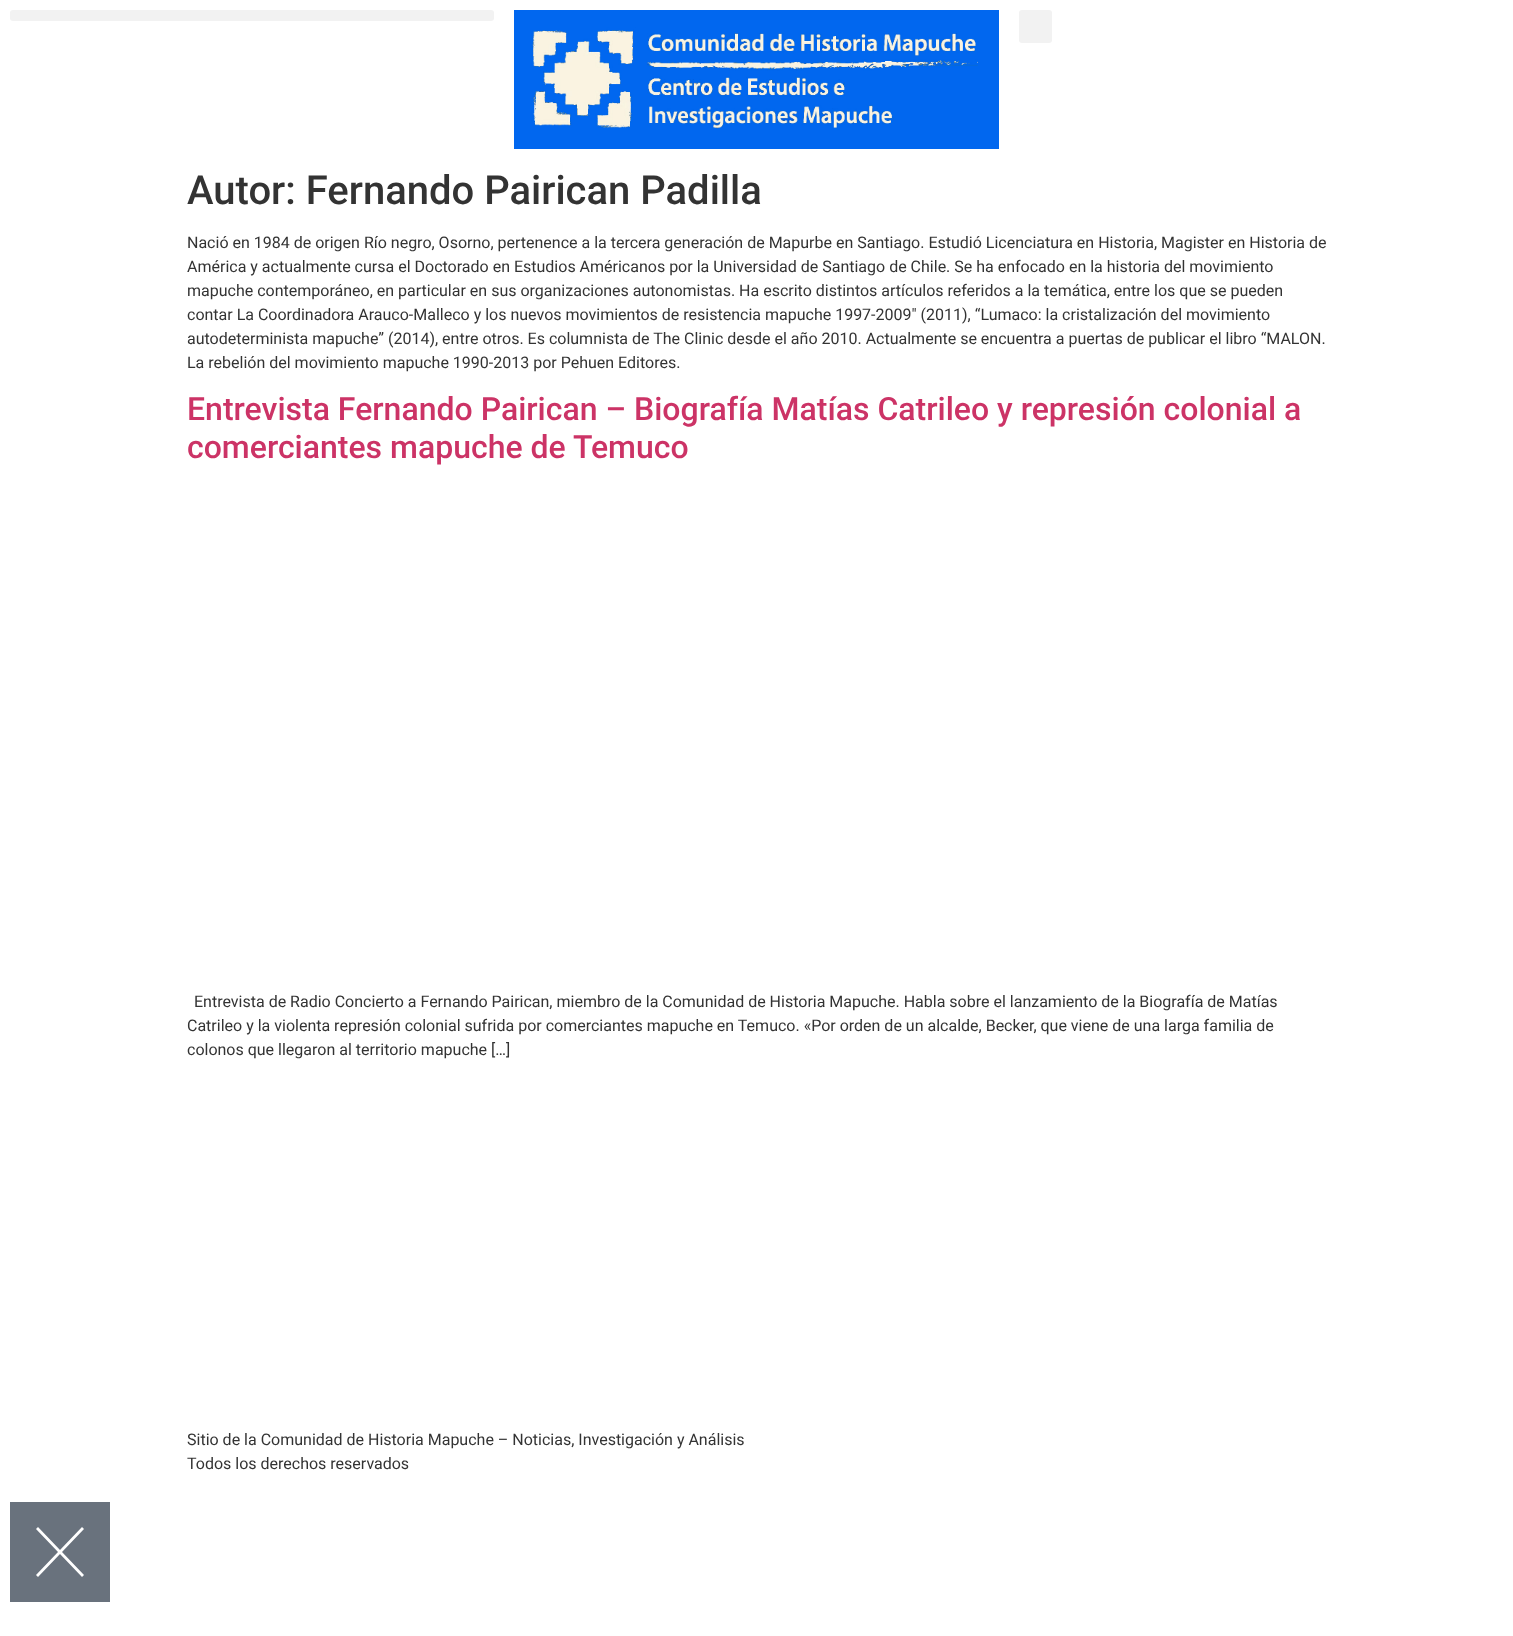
<!DOCTYPE html>
<meta charset="utf-8">
<style>body { margin: 0 } canvas { display: block }</style>
<canvas id="canvas" width="1513" height="1636"></canvas>
<script type="module">
  const canvas = document.getElementById("canvas");
  const g = canvas.getContext("2d");
  g.miterLimit = 4;
  g.fontKerning = "normal";
  function drawText(s, x, y, [font, color]) {
    g.font = font;
    g.fillStyle = color;
    g.fillText(s, x, y);
  }
  function fillBox(x, y, w, h, color) {
    g.fillStyle = color;
    g.fillRect(x, y, w, h);
  }
  function fillRounded(x, y, w, h, r, color) {
    g.fillStyle = color;
    g.beginPath();
    g.roundRect(x, y, w, h, r);
    g.fill();
  }
  async function drawPicture(src, x, y, w, h) {
    const img = new Image();
    img.src = src;
    await img.decode();
    g.drawImage(img, x, y, w, h);
  }

  const s1 = ["500 40px Roboto", "#333333"];
  const s2 = ["16px Roboto", "#333333"];
  const s3 = ["500 32px Roboto", "#CC3366"];

  fillBox(0, 0, 1513, 1636, "#FFFFFF");
  fillRounded(10, 10, 484, 11, 3, "#F2F2F2");
  await drawPicture("pic1.png", 514, 10, 485, 139);
  fillRounded(1019, 10, 33, 33, 3, "#F2F2F2");
  drawText("Autor: Fernando Pairican Padilla", 187, 204, s1);
  drawText("Nació en 1984 de origen Río negro, Osorno, pertenence a la tercera generación de Mapurbe en Santiago. Estudió Licenciatura en Historia, Magister en Historia de", 187, 248, s2);
  drawText("América y actualmente cursa el Doctorado en Estudios Américanos por la Universidad de Santiago de Chile. Se ha enfocado en la historia del movimiento", 187, 272, s2);
  drawText("mapuche contemporáneo, en particular en sus organizaciones autonomistas. Ha escrito distintos artículos referidos a la temática, entre los que se pueden", 187, 296, s2);
  drawText("contar La Coordinadora Arauco-Malleco y los nuevos movimientos de resistencia mapuche 1997-2009″ (2011), “Lumaco: la cristalización del movimiento", 187, 320, s2);
  drawText("autodeterminista mapuche” (2014), entre otros. Es columnista de The Clinic desde el año 2010. Actualmente se encuentra a puertas de publicar el libro “MALON.", 187, 344, s2);
  drawText("La rebelión del movimiento mapuche 1990-2013 por Pehuen Editores.", 187, 368, s2);
  drawText("Entrevista Fernando Pairican – Biografía Matías Catrileo y represión colonial a", 187, 420, s3);
  drawText("comerciantes mapuche de Temuco", 187, 458, s3);
  drawText("Entrevista de Radio Concierto a Fernando Pairican, miembro de la Comunidad de Historia Mapuche. Habla sobre el lanzamiento de la Biografía de Matías", 194, 1007, s2);
  drawText("Catrileo y la violenta represión colonial sufrida por comerciantes mapuche en Temuco. «Por orden de un alcalde, Becker, que viene de una larga familia de", 187, 1031, s2);
  drawText("colonos que llegaron al territorio mapuche […]", 187, 1055, s2);
  drawText("Sitio de la Comunidad de Historia Mapuche – Noticias, Investigación y Análisis", 187, 1445, s2);
  drawText("Todos los derechos reservados", 187, 1469, s2);
  fillBox(10, 1502, 100, 100, "#69727D");
  g.fillStyle = "#FFFFFF";
  g.beginPath();
  g.moveTo(84, 1529);
  g.lineTo(82, 1527);
  g.lineTo(60, 1550);
  g.lineTo(38, 1527);
  g.lineTo(36, 1529);
  g.lineTo(58, 1552);
  g.lineTo(36, 1575);
  g.lineTo(38, 1577);
  g.lineTo(60, 1554);
  g.lineTo(82, 1577);
  g.lineTo(84, 1575);
  g.lineTo(62, 1552);
  g.closePath();
  g.fill();
</script>
